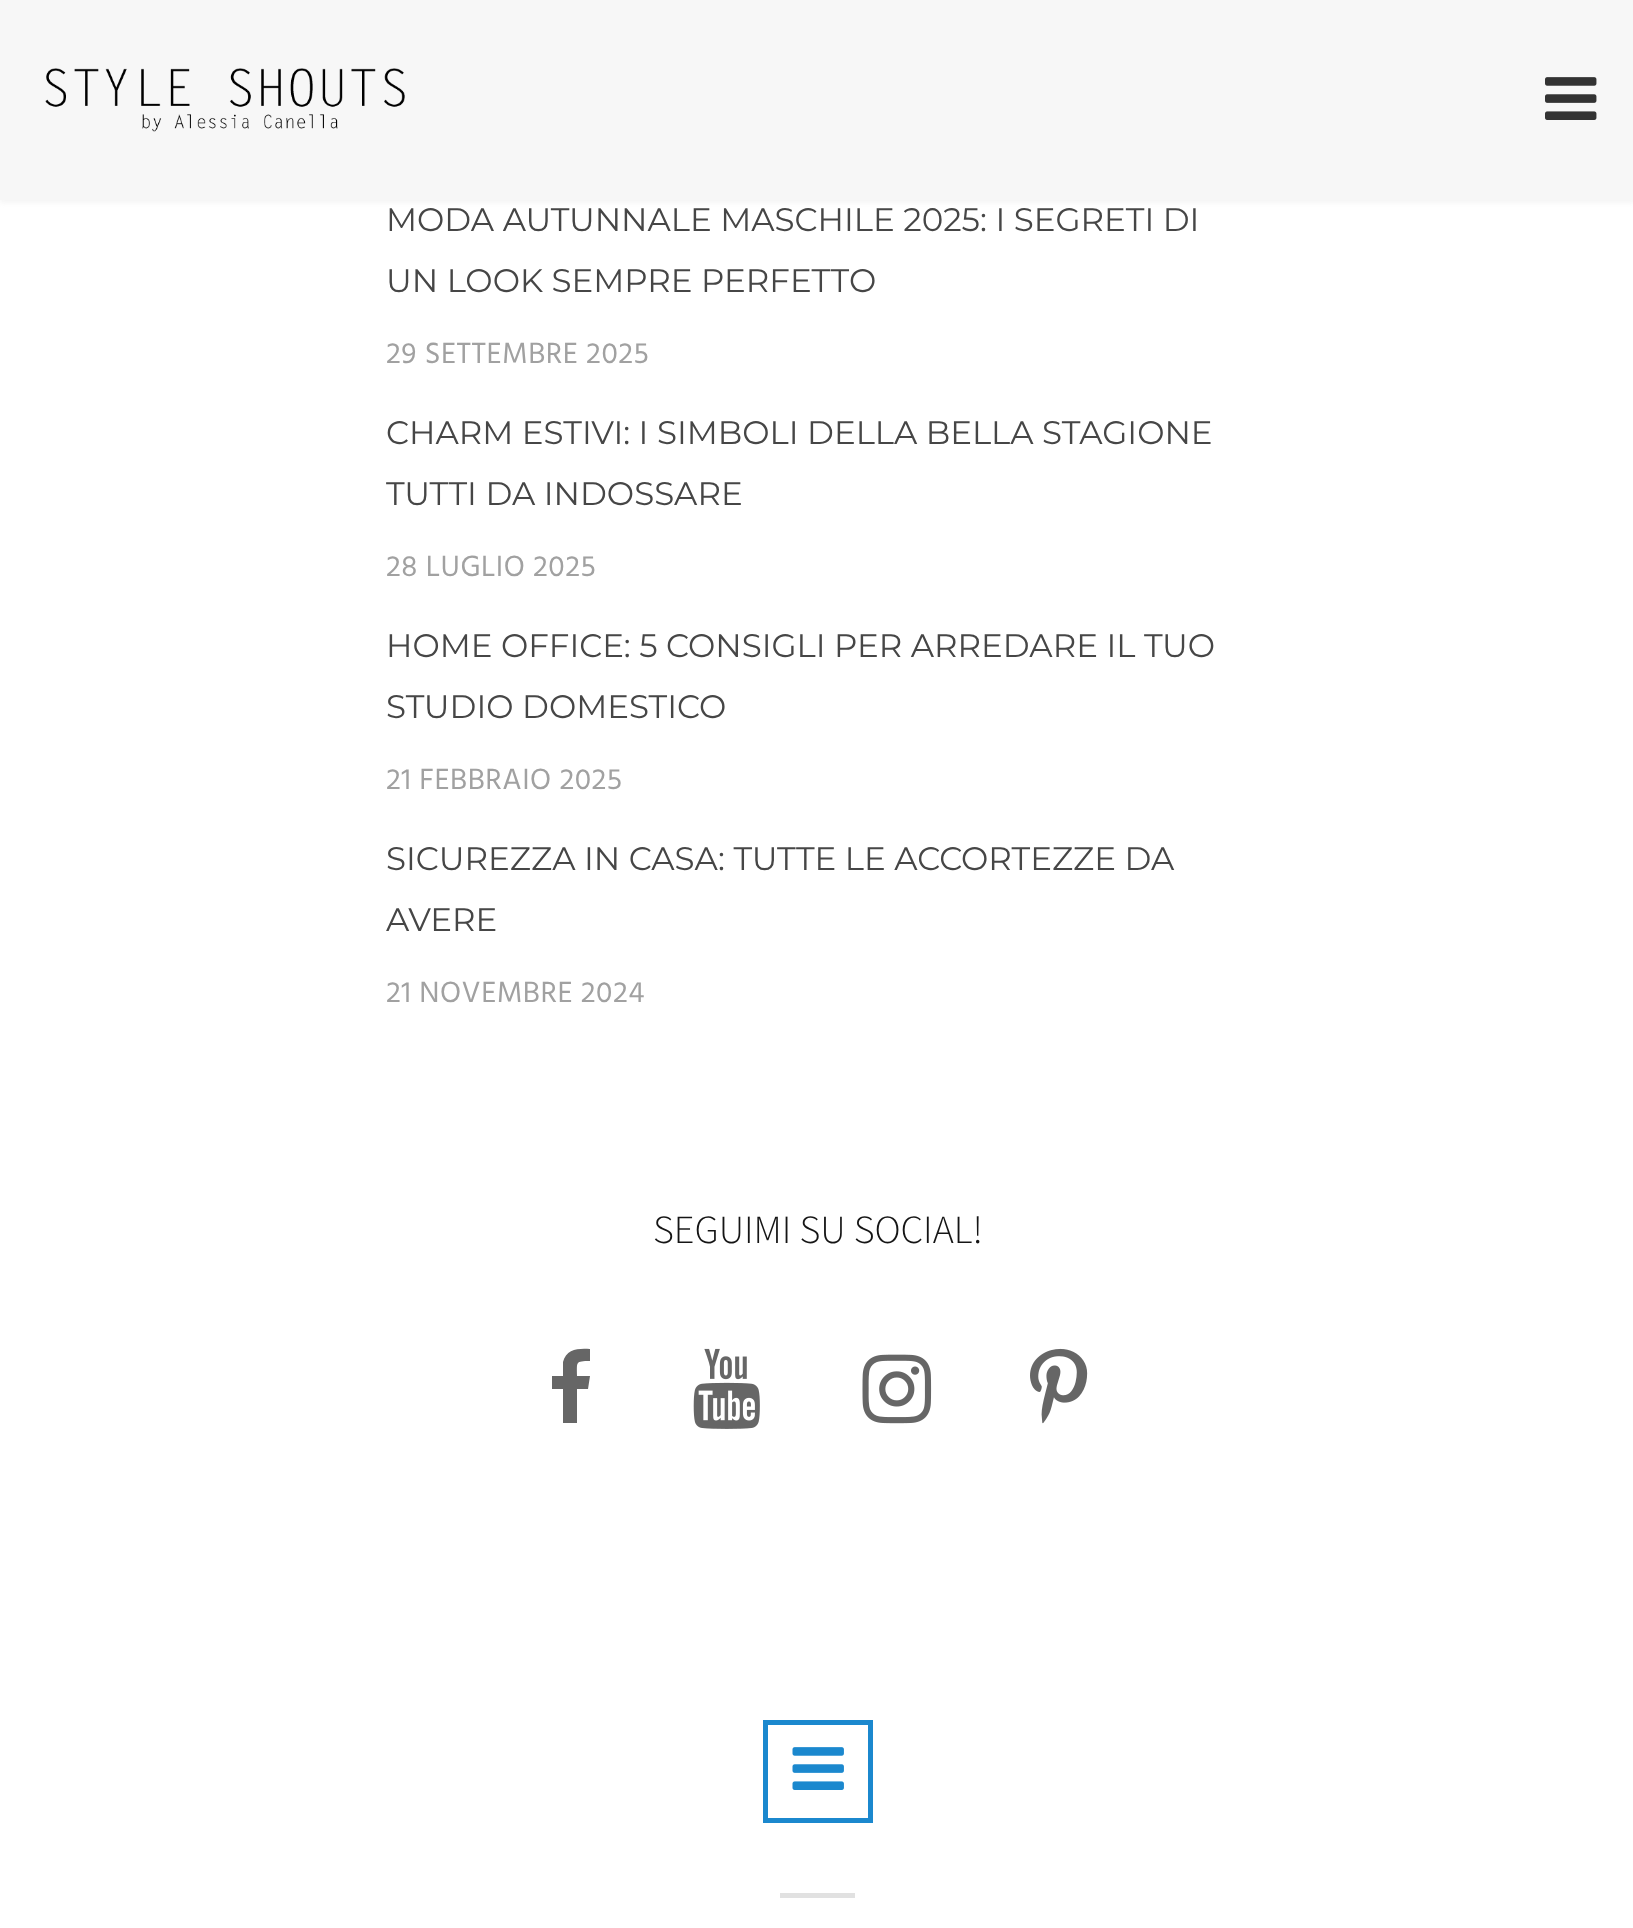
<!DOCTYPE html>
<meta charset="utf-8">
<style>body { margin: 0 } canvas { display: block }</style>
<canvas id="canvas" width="1633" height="1928"></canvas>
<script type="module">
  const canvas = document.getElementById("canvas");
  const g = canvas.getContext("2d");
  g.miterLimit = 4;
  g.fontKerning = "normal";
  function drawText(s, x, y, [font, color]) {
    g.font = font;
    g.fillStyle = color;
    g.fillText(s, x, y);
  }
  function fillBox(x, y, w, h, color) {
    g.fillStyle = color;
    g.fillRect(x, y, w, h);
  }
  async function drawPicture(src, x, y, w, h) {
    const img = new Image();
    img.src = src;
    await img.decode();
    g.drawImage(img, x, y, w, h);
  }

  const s1 = ["32.5px Montserrat", "#464646"];
  const s2 = ["30px Hind", "#A1A1A1"];
  const s3 = ["300 40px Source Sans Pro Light", "#151515"];

  fillBox(0, 0, 1633, 1928, "#FFFFFF");
  g.fillStyle = "rgba(235, 235, 235, 0.5)";
  g.filter = "blur(2.5px)";
  g.beginPath();
  g.rect(0, 3, 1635, 200);
  g.fill();
  g.filter = "none";
  fillBox(0, 0, 1633, 200, "#F7F7F7");
  await drawPicture("pic1.png", 45, 68, 360, 64);
  await drawPicture("pic2.png", 1545, 77, 52, 43);
  drawText("MODA AUTUNNALE MASCHILE 2025: I SEGRETI DI", 386, 231, s1);
  drawText("UN LOOK SEMPRE PERFETTO", 386, 292, s1);
  g.letterSpacing = "0.5px";
  drawText("29 SETTEMBRE 2025", 386, 363, s2);
  g.letterSpacing = "0px";
  drawText("CHARM ESTIVI: I SIMBOLI DELLA BELLA STAGIONE", 386, 444, s1);
  drawText("TUTTI DA INDOSSARE", 386, 505, s1);
  g.letterSpacing = "0.5px";
  drawText("28 LUGLIO 2025", 386, 576, s2);
  g.letterSpacing = "0px";
  drawText("HOME OFFICE: 5 CONSIGLI PER ARREDARE IL TUO", 386, 657, s1);
  drawText("STUDIO DOMESTICO", 386, 718, s1);
  g.letterSpacing = "0.5px";
  drawText("21 FEBBRAIO 2025", 386, 789, s2);
  g.letterSpacing = "0px";
  drawText("SICUREZZA IN CASA: TUTTE LE ACCORTEZZE DA", 386, 870, s1);
  drawText("AVERE", 386, 931, s1);
  g.letterSpacing = "0.5px";
  drawText("21 NOVEMBRE 2024", 386, 1002, s2);
  g.letterSpacing = "0px";
  drawText("SEGUIMI SU SOCIAL!", 653, 1243, s3);
  g.fillStyle = "#666666";
  g.beginPath();
  g.moveTo(590, 1349);
  g.lineTo(590, 1361);
  g.bezierCurveTo(575, 1361, 577, 1362, 577, 1376);
  g.lineTo(590, 1376);
  g.lineTo(588, 1389);
  g.lineTo(577, 1389);
  g.lineTo(577, 1423);
  g.lineTo(563, 1423);
  g.lineTo(563, 1389);
  g.lineTo(552, 1389);
  g.lineTo(552, 1376);
  g.lineTo(563, 1376);
  g.lineTo(563, 1362);
  g.bezierCurveTo(566, 1349, 579, 1348, 590, 1349);
  g.closePath();
  g.fill();
  await drawPicture("pic3.png", 693, 1348, 67, 81);
  await drawPicture("pic4.png", 862, 1354, 70, 70);
  await drawPicture("pic5.png", 1030, 1348, 58, 76);
  g.strokeStyle = "#1B88CE";
  g.lineWidth = 5;
  g.strokeRect(765.5, 1722.5, 105, 98);
  await drawPicture("pic6.png", 792, 1747, 52, 43);
  fillBox(780, 1893, 75, 5, "#E1E1E1");
</script>
